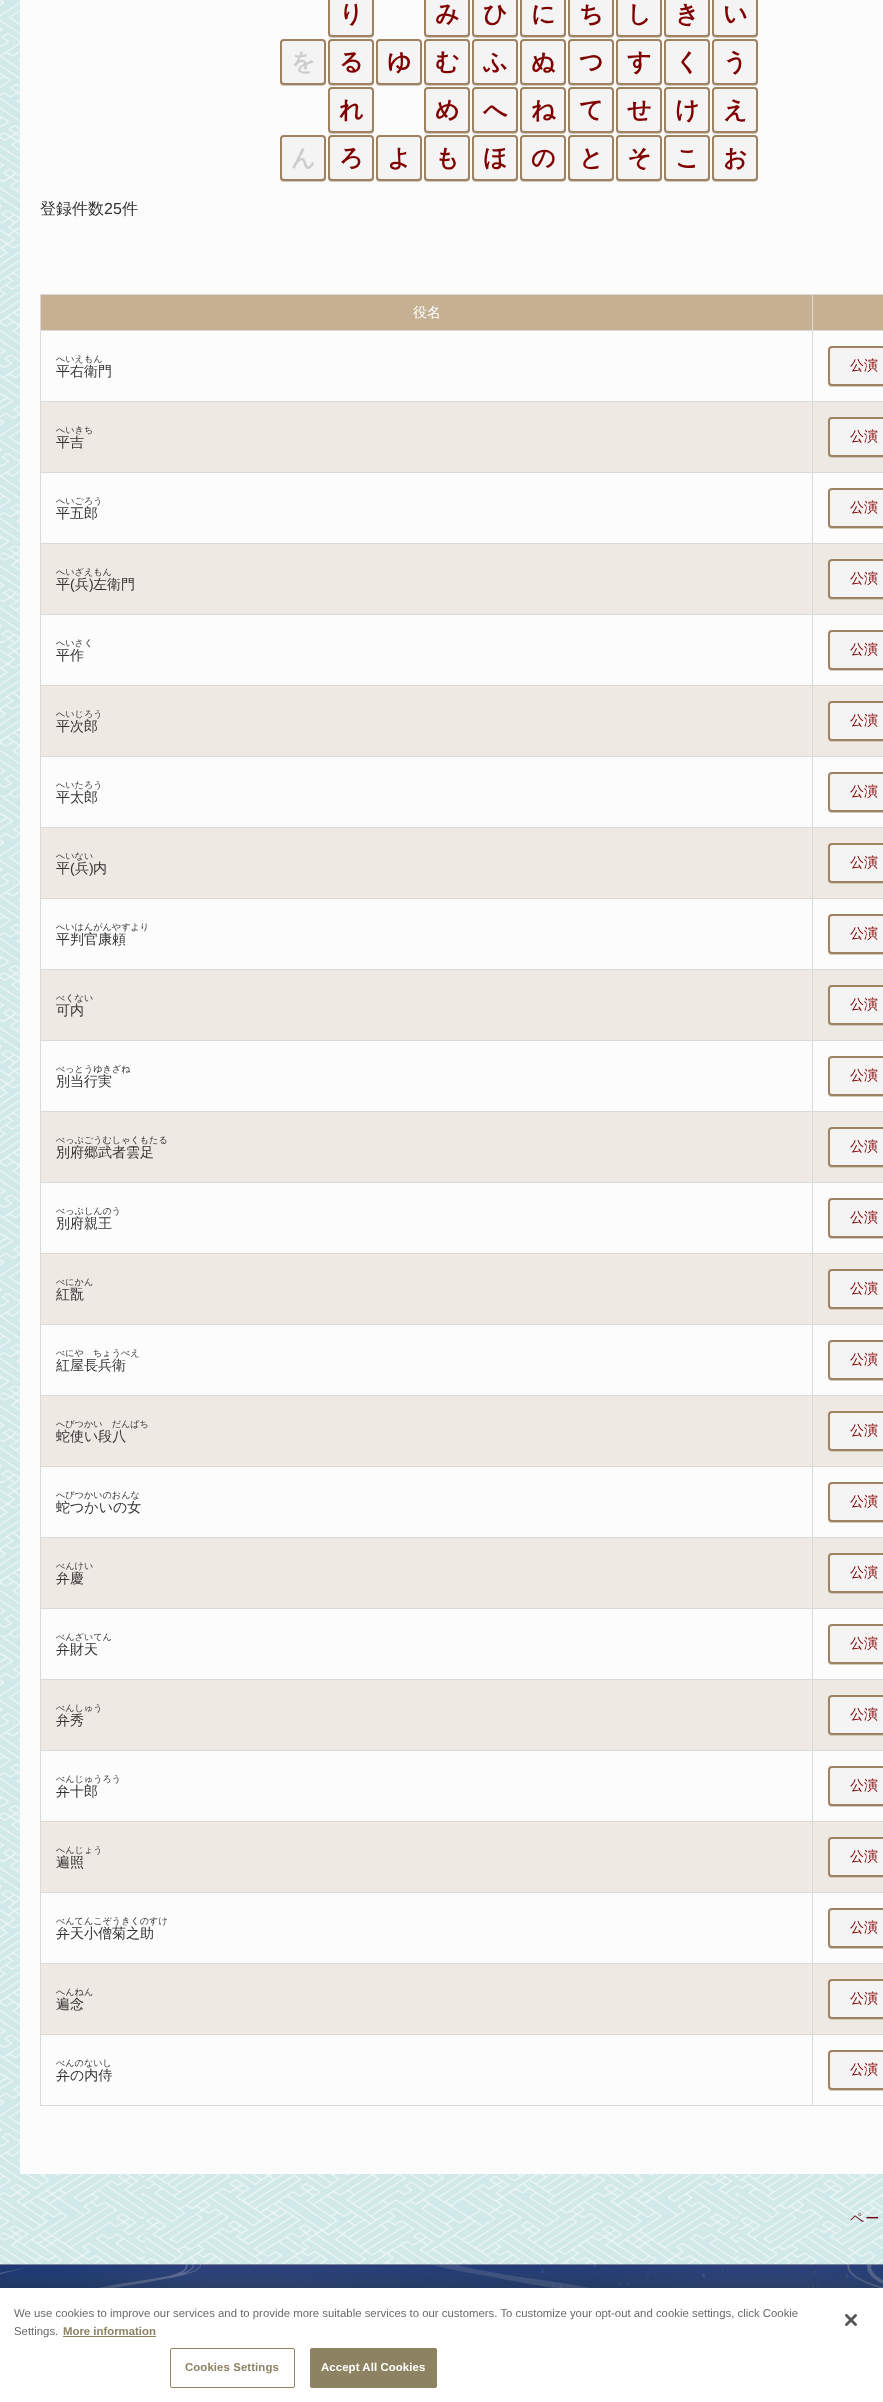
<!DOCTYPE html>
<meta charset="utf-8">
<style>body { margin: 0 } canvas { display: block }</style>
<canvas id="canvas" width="883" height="2402"></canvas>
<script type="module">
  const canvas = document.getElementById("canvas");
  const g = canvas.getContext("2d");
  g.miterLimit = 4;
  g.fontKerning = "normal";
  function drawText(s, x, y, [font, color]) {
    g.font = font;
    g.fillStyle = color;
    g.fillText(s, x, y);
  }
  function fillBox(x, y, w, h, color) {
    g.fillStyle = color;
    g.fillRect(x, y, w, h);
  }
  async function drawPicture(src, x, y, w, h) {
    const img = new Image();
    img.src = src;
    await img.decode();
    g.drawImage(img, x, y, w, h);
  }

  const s1 = ["bold 24px WenQuanYi Zen Hei", "#CCCCCC"];
  const s2 = ["bold 24px WenQuanYi Zen Hei", "#800000"];
  const s3 = ["500 16px WenQuanYi Zen Hei", "#333333"];
  const s4 = ["16px Liberation Sans", "#333333"];
  const s5 = ["500 14px WenQuanYi Zen Hei", "#FFFFFF"];
  const s6 = ["500 9.1px WenQuanYi Zen Hei", "#333333"];
  const s7 = ["500 14px WenQuanYi Zen Hei", "#333333"];
  const s8 = ["500 14px WenQuanYi Zen Hei", "#800000"];
  const s9 = ["14px Liberation Sans", "#333333"];
  const s10 = ["500 14px WenQuanYi Zen Hei", "#6F000C"];
  const s11 = ["11.38px Liberation Sans", "#696969"];
  const s12 = ["bold 11.38px Liberation Sans", "#8D8363"];
  const s13 = ["bold 11.38px Liberation Sans", "#FFFFFF"];

  fillBox(0, 0, 883, 2402, "#FFFFFF");
  await drawPicture("pic1.png", 0, 0, 883, 2265);
  fillBox(20, 0, 863, 2174, "#FCFCFC");
  g.fillStyle = "#D2C9BC";
  g.filter = "blur(0.5px)";
  g.beginPath();
  g.roundRect(712, -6, 46, 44, 4);
  g.fill();
  g.filter = "none";
  g.fillStyle = "#F4F4F4";
  g.beginPath();
  g.roundRect(713, -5, 44, 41, 3);
  g.fill();
  g.strokeStyle = "#9F8261";
  g.lineWidth = 2;
  g.stroke();
  g.fillStyle = "#D2C9BC";
  g.filter = "blur(0.5px)";
  g.beginPath();
  g.roundRect(712, 40, 46, 46, 4);
  g.fill();
  g.filter = "none";
  g.fillStyle = "#F4F4F4";
  g.beginPath();
  g.roundRect(713, 40, 44, 44, 3);
  g.fill();
  g.stroke();
  g.fillStyle = "#D2C9BC";
  g.filter = "blur(0.5px)";
  g.beginPath();
  g.roundRect(664, -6, 46, 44, 4);
  g.fill();
  g.filter = "none";
  g.fillStyle = "#F4F4F4";
  g.beginPath();
  g.roundRect(665, -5, 44, 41, 3);
  g.fill();
  g.stroke();
  g.fillStyle = "#D2C9BC";
  g.filter = "blur(0.5px)";
  g.beginPath();
  g.roundRect(712, 88, 46, 46, 4);
  g.fill();
  g.filter = "none";
  g.fillStyle = "#F4F4F4";
  g.beginPath();
  g.roundRect(713, 88, 44, 44, 3);
  g.fill();
  g.stroke();
  g.fillStyle = "#D2C9BC";
  g.filter = "blur(0.5px)";
  g.beginPath();
  g.roundRect(664, 40, 46, 46, 4);
  g.fill();
  g.filter = "none";
  g.fillStyle = "#F4F4F4";
  g.beginPath();
  g.roundRect(665, 40, 44, 44, 3);
  g.fill();
  g.stroke();
  g.fillStyle = "#D2C9BC";
  g.filter = "blur(0.5px)";
  g.beginPath();
  g.roundRect(616, -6, 46, 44, 4);
  g.fill();
  g.filter = "none";
  g.fillStyle = "#F4F4F4";
  g.beginPath();
  g.roundRect(617, -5, 44, 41, 3);
  g.fill();
  g.stroke();
  g.fillStyle = "#D2C9BC";
  g.filter = "blur(0.5px)";
  g.beginPath();
  g.roundRect(712, 136, 46, 46, 4);
  g.fill();
  g.filter = "none";
  g.fillStyle = "#F4F4F4";
  g.beginPath();
  g.roundRect(713, 136, 44, 44, 3);
  g.fill();
  g.stroke();
  g.fillStyle = "#D2C9BC";
  g.filter = "blur(0.5px)";
  g.beginPath();
  g.roundRect(664, 88, 46, 46, 4);
  g.fill();
  g.filter = "none";
  g.fillStyle = "#F4F4F4";
  g.beginPath();
  g.roundRect(665, 88, 44, 44, 3);
  g.fill();
  g.stroke();
  g.fillStyle = "#D2C9BC";
  g.filter = "blur(0.5px)";
  g.beginPath();
  g.roundRect(616, 40, 46, 46, 4);
  g.fill();
  g.filter = "none";
  g.fillStyle = "#F4F4F4";
  g.beginPath();
  g.roundRect(617, 40, 44, 44, 3);
  g.fill();
  g.stroke();
  g.fillStyle = "#D2C9BC";
  g.filter = "blur(0.5px)";
  g.beginPath();
  g.roundRect(568, -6, 46, 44, 4);
  g.fill();
  g.filter = "none";
  g.fillStyle = "#F4F4F4";
  g.beginPath();
  g.roundRect(569, -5, 44, 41, 3);
  g.fill();
  g.stroke();
  g.fillStyle = "#D2C9BC";
  g.filter = "blur(0.5px)";
  g.beginPath();
  g.roundRect(664, 136, 46, 46, 4);
  g.fill();
  g.filter = "none";
  g.fillStyle = "#F4F4F4";
  g.beginPath();
  g.roundRect(665, 136, 44, 44, 3);
  g.fill();
  g.stroke();
  g.fillStyle = "#D2C9BC";
  g.filter = "blur(0.5px)";
  g.beginPath();
  g.roundRect(616, 88, 46, 46, 4);
  g.fill();
  g.filter = "none";
  g.fillStyle = "#F4F4F4";
  g.beginPath();
  g.roundRect(617, 88, 44, 44, 3);
  g.fill();
  g.stroke();
  g.fillStyle = "#D2C9BC";
  g.filter = "blur(0.5px)";
  g.beginPath();
  g.roundRect(568, 40, 46, 46, 4);
  g.fill();
  g.filter = "none";
  g.fillStyle = "#F4F4F4";
  g.beginPath();
  g.roundRect(569, 40, 44, 44, 3);
  g.fill();
  g.stroke();
  g.fillStyle = "#D2C9BC";
  g.filter = "blur(0.5px)";
  g.beginPath();
  g.roundRect(520, -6, 46, 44, 4);
  g.fill();
  g.filter = "none";
  g.fillStyle = "#F4F4F4";
  g.beginPath();
  g.roundRect(521, -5, 44, 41, 3);
  g.fill();
  g.stroke();
  g.fillStyle = "#D2C9BC";
  g.filter = "blur(0.5px)";
  g.beginPath();
  g.roundRect(616, 136, 46, 46, 4);
  g.fill();
  g.filter = "none";
  g.fillStyle = "#F4F4F4";
  g.beginPath();
  g.roundRect(617, 136, 44, 44, 3);
  g.fill();
  g.stroke();
  g.fillStyle = "#D2C9BC";
  g.filter = "blur(0.5px)";
  g.beginPath();
  g.roundRect(568, 88, 46, 46, 4);
  g.fill();
  g.filter = "none";
  g.fillStyle = "#F4F4F4";
  g.beginPath();
  g.roundRect(569, 88, 44, 44, 3);
  g.fill();
  g.stroke();
  g.fillStyle = "#D2C9BC";
  g.filter = "blur(0.5px)";
  g.beginPath();
  g.roundRect(520, 40, 46, 46, 4);
  g.fill();
  g.filter = "none";
  g.fillStyle = "#F4F4F4";
  g.beginPath();
  g.roundRect(521, 40, 44, 44, 3);
  g.fill();
  g.stroke();
  g.fillStyle = "#D2C9BC";
  g.filter = "blur(0.5px)";
  g.beginPath();
  g.roundRect(472, -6, 46, 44, 4);
  g.fill();
  g.filter = "none";
  g.fillStyle = "#F4F4F4";
  g.beginPath();
  g.roundRect(473, -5, 44, 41, 3);
  g.fill();
  g.stroke();
  g.fillStyle = "#D2C9BC";
  g.filter = "blur(0.5px)";
  g.beginPath();
  g.roundRect(568, 136, 46, 46, 4);
  g.fill();
  g.filter = "none";
  g.fillStyle = "#F4F4F4";
  g.beginPath();
  g.roundRect(569, 136, 44, 44, 3);
  g.fill();
  g.stroke();
  g.fillStyle = "#D2C9BC";
  g.filter = "blur(0.5px)";
  g.beginPath();
  g.roundRect(520, 88, 46, 46, 4);
  g.fill();
  g.filter = "none";
  g.fillStyle = "#F4F4F4";
  g.beginPath();
  g.roundRect(521, 88, 44, 44, 3);
  g.fill();
  g.stroke();
  g.fillStyle = "#D2C9BC";
  g.filter = "blur(0.5px)";
  g.beginPath();
  g.roundRect(472, 40, 46, 46, 4);
  g.fill();
  g.filter = "none";
  g.fillStyle = "#F4F4F4";
  g.beginPath();
  g.roundRect(473, 40, 44, 44, 3);
  g.fill();
  g.stroke();
  g.fillStyle = "#D2C9BC";
  g.filter = "blur(0.5px)";
  g.beginPath();
  g.roundRect(424, -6, 46, 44, 4);
  g.fill();
  g.filter = "none";
  g.filter = "blur(0.5px)";
  g.beginPath();
  g.roundRect(520, 136, 46, 46, 4);
  g.fill();
  g.filter = "none";
  g.fillStyle = "#F4F4F4";
  g.beginPath();
  g.roundRect(521, 136, 44, 44, 3);
  g.fill();
  g.stroke();
  g.fillStyle = "#D2C9BC";
  g.filter = "blur(0.5px)";
  g.beginPath();
  g.roundRect(472, 88, 46, 46, 4);
  g.fill();
  g.filter = "none";
  g.fillStyle = "#F4F4F4";
  g.beginPath();
  g.roundRect(473, 88, 44, 44, 3);
  g.fill();
  g.stroke();
  g.fillStyle = "#D2C9BC";
  g.filter = "blur(0.5px)";
  g.beginPath();
  g.roundRect(424, 40, 46, 46, 4);
  g.fill();
  g.filter = "none";
  g.fillStyle = "#F4F4F4";
  g.beginPath();
  g.roundRect(425, 40, 44, 44, 3);
  g.fill();
  g.stroke();
  g.fillStyle = "#D2C9BC";
  g.filter = "blur(0.5px)";
  g.beginPath();
  g.roundRect(472, 136, 46, 46, 4);
  g.fill();
  g.filter = "none";
  g.fillStyle = "#F4F4F4";
  g.beginPath();
  g.roundRect(473, 136, 44, 44, 3);
  g.fill();
  g.stroke();
  g.fillStyle = "#D2C9BC";
  g.filter = "blur(0.5px)";
  g.beginPath();
  g.roundRect(424, 88, 46, 46, 4);
  g.fill();
  g.filter = "none";
  g.fillStyle = "#F4F4F4";
  g.beginPath();
  g.roundRect(425, 88, 44, 44, 3);
  g.fill();
  g.stroke();
  g.fillStyle = "#D2C9BC";
  g.filter = "blur(0.5px)";
  g.beginPath();
  g.roundRect(376, 40, 46, 46, 4);
  g.fill();
  g.filter = "none";
  g.fillStyle = "#F4F4F4";
  g.beginPath();
  g.roundRect(377, 40, 44, 44, 3);
  g.fill();
  g.stroke();
  g.fillStyle = "#D2C9BC";
  g.filter = "blur(0.5px)";
  g.beginPath();
  g.roundRect(328, -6, 46, 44, 4);
  g.fill();
  g.filter = "none";
  g.filter = "blur(0.5px)";
  g.beginPath();
  g.roundRect(328, 40, 46, 46, 4);
  g.fill();
  g.filter = "none";
  g.fillStyle = "#F4F4F4";
  g.beginPath();
  g.roundRect(329, 40, 44, 44, 3);
  g.fill();
  g.stroke();
  g.fillStyle = "#D2C9BC";
  g.filter = "blur(0.5px)";
  g.beginPath();
  g.roundRect(424, 136, 46, 46, 4);
  g.fill();
  g.filter = "none";
  g.fillStyle = "#F4F4F4";
  g.beginPath();
  g.roundRect(425, 136, 44, 44, 3);
  g.fill();
  g.stroke();
  g.fillStyle = "#D2C9BC";
  g.filter = "blur(0.5px)";
  g.beginPath();
  g.roundRect(376, 136, 46, 46, 4);
  g.fill();
  g.filter = "none";
  g.fillStyle = "#F4F4F4";
  g.beginPath();
  g.roundRect(377, 136, 44, 44, 3);
  g.fill();
  g.stroke();
  g.fillStyle = "#D2C9BC";
  g.filter = "blur(0.5px)";
  g.beginPath();
  g.roundRect(328, 88, 46, 46, 4);
  g.fill();
  g.filter = "none";
  g.fillStyle = "#F4F4F4";
  g.beginPath();
  g.roundRect(329, 88, 44, 44, 3);
  g.fill();
  g.stroke();
  g.fillStyle = "#D2C9BC";
  g.filter = "blur(0.5px)";
  g.beginPath();
  g.roundRect(280, 40, 46, 46, 4);
  g.fill();
  g.filter = "none";
  g.fillStyle = "#F4F4F4";
  g.beginPath();
  g.roundRect(281, 40, 44, 44, 3);
  g.fill();
  g.stroke();
  drawText("を", 291, 70, s1);
  g.fillStyle = "#D2C9BC";
  g.filter = "blur(0.5px)";
  g.beginPath();
  g.roundRect(328, 136, 46, 46, 4);
  g.fill();
  g.filter = "none";
  g.fillStyle = "#F4F4F4";
  g.beginPath();
  g.roundRect(329, 136, 44, 44, 3);
  g.fill();
  g.stroke();
  g.fillStyle = "#D2C9BC";
  g.filter = "blur(0.5px)";
  g.beginPath();
  g.roundRect(280, 136, 46, 46, 4);
  g.fill();
  g.filter = "none";
  g.fillStyle = "#F4F4F4";
  g.beginPath();
  g.roundRect(281, 136, 44, 44, 3);
  g.fill();
  g.stroke();
  drawText("ん", 291, 166, s1);
  g.fillStyle = "#F4F4F4";
  g.beginPath();
  g.roundRect(329, -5, 44, 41, 3);
  g.fill();
  g.stroke();
  drawText("り", 339, 22, s2);
  drawText("る", 339, 70, s2);
  drawText("れ", 339, 118, s2);
  drawText("ろ", 339, 166, s2);
  drawText("ゆ", 387, 70, s2);
  drawText("よ", 387, 166, s2);
  g.fillStyle = "#F4F4F4";
  g.beginPath();
  g.roundRect(425, -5, 44, 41, 3);
  g.fill();
  g.stroke();
  drawText("み", 435, 22, s2);
  drawText("む", 435, 70, s2);
  drawText("め", 435, 118, s2);
  drawText("も", 435, 166, s2);
  drawText("ひ", 483, 22, s2);
  drawText("ふ", 483, 70, s2);
  drawText("へ", 483, 118, s2);
  drawText("ほ", 483, 166, s2);
  drawText("に", 531, 22, s2);
  drawText("ぬ", 531, 70, s2);
  drawText("ね", 531, 118, s2);
  drawText("の", 531, 166, s2);
  drawText("ち", 579, 22, s2);
  drawText("つ", 579, 70, s2);
  drawText("て", 579, 118, s2);
  drawText("と", 579, 166, s2);
  drawText("し", 627, 22, s2);
  drawText("す", 627, 70, s2);
  drawText("せ", 627, 118, s2);
  drawText("そ", 627, 166, s2);
  drawText("き", 675, 22, s2);
  drawText("く", 675, 70, s2);
  drawText("け", 675, 118, s2);
  drawText("こ", 675, 166, s2);
  drawText("い", 723, 22, s2);
  drawText("う", 723, 70, s2);
  drawText("え", 723, 118, s2);
  drawText("お", 723, 166, s2);
  drawText("登録件数", 40, 214, s3);
  drawText("25", 104, 214, s4);
  drawText("件", 122, 214, s3);
  fillBox(41, 295, 771, 35, "#C5B092");
  fillBox(812, 294, 71, 1, "#DADADA");
  fillBox(812, 330, 71, 1, "#DADADA");
  fillBox(812, 401, 71, 1, "#DADADA");
  fillBox(812, 472, 71, 1, "#DADADA");
  fillBox(812, 543, 71, 1, "#DADADA");
  fillBox(812, 614, 71, 1, "#DADADA");
  fillBox(812, 685, 71, 1, "#DADADA");
  fillBox(812, 756, 71, 1, "#DADADA");
  fillBox(812, 827, 71, 1, "#DADADA");
  fillBox(812, 898, 71, 1, "#DADADA");
  fillBox(812, 969, 71, 1, "#DADADA");
  fillBox(812, 1040, 71, 1, "#DADADA");
  fillBox(812, 1111, 71, 1, "#DADADA");
  fillBox(812, 1182, 71, 1, "#DADADA");
  fillBox(812, 1253, 71, 1, "#DADADA");
  fillBox(812, 1324, 71, 1, "#DADADA");
  fillBox(812, 1395, 71, 1, "#DADADA");
  fillBox(812, 1466, 71, 1, "#DADADA");
  fillBox(812, 1537, 71, 1, "#DADADA");
  fillBox(812, 1608, 71, 1, "#DADADA");
  fillBox(812, 1679, 71, 1, "#DADADA");
  fillBox(812, 1750, 71, 1, "#DADADA");
  fillBox(812, 1821, 71, 1, "#DADADA");
  fillBox(812, 1892, 71, 1, "#DADADA");
  fillBox(812, 1963, 71, 1, "#DADADA");
  fillBox(812, 2034, 71, 1, "#DADADA");
  fillBox(812, 2105, 71, 1, "#DADADA");
  fillBox(812, 2034, 1, 72, "#DADADA");
  fillBox(40, 2034, 773, 1, "#DADADA");
  fillBox(812, 1963, 1, 72, "#DADADA");
  fillBox(40, 1963, 773, 1, "#DADADA");
  fillBox(812, 1892, 1, 72, "#DADADA");
  fillBox(40, 1892, 773, 1, "#DADADA");
  fillBox(812, 1821, 1, 72, "#DADADA");
  fillBox(40, 1821, 773, 1, "#DADADA");
  fillBox(812, 1750, 1, 72, "#DADADA");
  fillBox(40, 1750, 773, 1, "#DADADA");
  fillBox(812, 1679, 1, 72, "#DADADA");
  fillBox(40, 1679, 773, 1, "#DADADA");
  fillBox(812, 1608, 1, 72, "#DADADA");
  fillBox(40, 1608, 773, 1, "#DADADA");
  fillBox(812, 1537, 1, 72, "#DADADA");
  fillBox(40, 1537, 773, 1, "#DADADA");
  fillBox(812, 1466, 1, 72, "#DADADA");
  fillBox(40, 1466, 773, 1, "#DADADA");
  fillBox(812, 1395, 1, 72, "#DADADA");
  fillBox(40, 1395, 773, 1, "#DADADA");
  fillBox(812, 1324, 1, 72, "#DADADA");
  fillBox(40, 1324, 773, 1, "#DADADA");
  fillBox(812, 1253, 1, 72, "#DADADA");
  fillBox(40, 1253, 773, 1, "#DADADA");
  fillBox(812, 1182, 1, 72, "#DADADA");
  fillBox(40, 1182, 773, 1, "#DADADA");
  fillBox(812, 1111, 1, 72, "#DADADA");
  fillBox(40, 1111, 773, 1, "#DADADA");
  fillBox(812, 1040, 1, 72, "#DADADA");
  fillBox(40, 1040, 773, 1, "#DADADA");
  fillBox(812, 969, 1, 72, "#DADADA");
  fillBox(40, 969, 773, 1, "#DADADA");
  fillBox(812, 898, 1, 72, "#DADADA");
  fillBox(40, 898, 773, 1, "#DADADA");
  fillBox(812, 827, 1, 72, "#DADADA");
  fillBox(40, 827, 773, 1, "#DADADA");
  fillBox(812, 756, 1, 72, "#DADADA");
  fillBox(40, 756, 773, 1, "#DADADA");
  fillBox(812, 685, 1, 72, "#DADADA");
  fillBox(40, 685, 773, 1, "#DADADA");
  fillBox(812, 614, 1, 72, "#DADADA");
  fillBox(40, 614, 773, 1, "#DADADA");
  fillBox(812, 543, 1, 72, "#DADADA");
  fillBox(40, 543, 773, 1, "#DADADA");
  fillBox(812, 472, 1, 72, "#DADADA");
  fillBox(40, 472, 773, 1, "#DADADA");
  fillBox(812, 401, 1, 72, "#DADADA");
  fillBox(40, 401, 773, 1, "#DADADA");
  fillBox(812, 330, 1, 72, "#DADADA");
  fillBox(40, 330, 773, 1, "#DADADA");
  fillBox(812, 294, 1, 37, "#DADADA");
  fillBox(40, 294, 773, 1, "#DADADA");
  fillBox(40, 2105, 773, 1, "#DADADA");
  fillBox(40, 2034, 1, 72, "#DADADA");
  fillBox(40, 1963, 1, 72, "#DADADA");
  fillBox(40, 1892, 1, 72, "#DADADA");
  fillBox(40, 1821, 1, 72, "#DADADA");
  fillBox(40, 1750, 1, 72, "#DADADA");
  fillBox(40, 1679, 1, 72, "#DADADA");
  fillBox(40, 1608, 1, 72, "#DADADA");
  fillBox(40, 1537, 1, 72, "#DADADA");
  fillBox(40, 1466, 1, 72, "#DADADA");
  fillBox(40, 1395, 1, 72, "#DADADA");
  fillBox(40, 1324, 1, 72, "#DADADA");
  fillBox(40, 1253, 1, 72, "#DADADA");
  fillBox(40, 1182, 1, 72, "#DADADA");
  fillBox(40, 1111, 1, 72, "#DADADA");
  fillBox(40, 1040, 1, 72, "#DADADA");
  fillBox(40, 969, 1, 72, "#DADADA");
  fillBox(40, 898, 1, 72, "#DADADA");
  fillBox(40, 827, 1, 72, "#DADADA");
  fillBox(40, 756, 1, 72, "#DADADA");
  fillBox(40, 685, 1, 72, "#DADADA");
  fillBox(40, 614, 1, 72, "#DADADA");
  fillBox(40, 543, 1, 72, "#DADADA");
  fillBox(40, 472, 1, 72, "#DADADA");
  fillBox(40, 401, 1, 72, "#DADADA");
  fillBox(40, 330, 1, 72, "#DADADA");
  fillBox(40, 294, 1, 37, "#DADADA");
  drawText("役名", 413, 317, s5);
  fillBox(813, 295, 70, 35, "#C5B092");
  drawText("へいえもん", 56, 362, s6);
  drawText("平右衛門", 56, 376, s7);
  g.fillStyle = "#D2C9BC";
  g.filter = "blur(0.5px)";
  g.beginPath();
  g.roundRect(828, 347, 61, 40, 4);
  g.fill();
  g.filter = "none";
  g.fillStyle = "#F4F4F4";
  g.beginPath();
  g.roundRect(829, 347, 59, 38, 3);
  g.fill();
  g.stroke();
  drawText("公演", 850, 370, s8);
  fillBox(41, 402, 771, 70, "#EFE9E4");
  drawText("へいきち", 56, 433, s6);
  drawText("平吉", 56, 447, s7);
  fillBox(813, 402, 70, 70, "#EFE9E4");
  g.fillStyle = "#D2C9BC";
  g.filter = "blur(0.5px)";
  g.beginPath();
  g.roundRect(828, 418, 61, 40, 4);
  g.fill();
  g.filter = "none";
  g.fillStyle = "#F4F4F4";
  g.beginPath();
  g.roundRect(829, 418, 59, 38, 3);
  g.fill();
  g.stroke();
  drawText("公演", 850, 441, s8);
  drawText("へいごろう", 56, 504, s6);
  drawText("平五郎", 56, 518, s7);
  g.fillStyle = "#D2C9BC";
  g.filter = "blur(0.5px)";
  g.beginPath();
  g.roundRect(828, 489, 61, 40, 4);
  g.fill();
  g.filter = "none";
  g.fillStyle = "#F4F4F4";
  g.beginPath();
  g.roundRect(829, 489, 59, 38, 3);
  g.fill();
  g.stroke();
  drawText("公演", 850, 512, s8);
  fillBox(41, 544, 771, 70, "#EFE9E4");
  drawText("へいざえもん", 56, 575, s6);
  drawText("平", 56, 589, s7);
  drawText("(", 70, 589, s9);
  drawText("兵", 75, 589, s7);
  drawText(")", 89, 589, s9);
  drawText("左衛門", 93, 589, s7);
  fillBox(813, 544, 70, 70, "#EFE9E4");
  g.fillStyle = "#D2C9BC";
  g.filter = "blur(0.5px)";
  g.beginPath();
  g.roundRect(828, 560, 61, 40, 4);
  g.fill();
  g.filter = "none";
  g.fillStyle = "#F4F4F4";
  g.beginPath();
  g.roundRect(829, 560, 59, 38, 3);
  g.fill();
  g.stroke();
  drawText("公演", 850, 583, s8);
  drawText("へいさく", 56, 646, s6);
  drawText("平作", 56, 660, s7);
  g.fillStyle = "#D2C9BC";
  g.filter = "blur(0.5px)";
  g.beginPath();
  g.roundRect(828, 631, 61, 40, 4);
  g.fill();
  g.filter = "none";
  g.fillStyle = "#F4F4F4";
  g.beginPath();
  g.roundRect(829, 631, 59, 38, 3);
  g.fill();
  g.stroke();
  drawText("公演", 850, 654, s8);
  fillBox(41, 686, 771, 70, "#EFE9E4");
  drawText("へいじろう", 56, 717, s6);
  drawText("平次郎", 56, 731, s7);
  fillBox(813, 686, 70, 70, "#EFE9E4");
  g.fillStyle = "#D2C9BC";
  g.filter = "blur(0.5px)";
  g.beginPath();
  g.roundRect(828, 702, 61, 40, 4);
  g.fill();
  g.filter = "none";
  g.fillStyle = "#F4F4F4";
  g.beginPath();
  g.roundRect(829, 702, 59, 38, 3);
  g.fill();
  g.stroke();
  drawText("公演", 850, 725, s8);
  drawText("へいたろう", 56, 788, s6);
  drawText("平太郎", 56, 802, s7);
  g.fillStyle = "#D2C9BC";
  g.filter = "blur(0.5px)";
  g.beginPath();
  g.roundRect(828, 773, 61, 40, 4);
  g.fill();
  g.filter = "none";
  g.fillStyle = "#F4F4F4";
  g.beginPath();
  g.roundRect(829, 773, 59, 38, 3);
  g.fill();
  g.stroke();
  drawText("公演", 850, 796, s8);
  fillBox(41, 828, 771, 70, "#EFE9E4");
  drawText("へいない", 56, 859, s6);
  drawText("平", 56, 873, s7);
  drawText("(", 70, 873, s9);
  drawText("兵", 75, 873, s7);
  drawText(")", 89, 873, s9);
  drawText("内", 93, 873, s7);
  fillBox(813, 828, 70, 70, "#EFE9E4");
  g.fillStyle = "#D2C9BC";
  g.filter = "blur(0.5px)";
  g.beginPath();
  g.roundRect(828, 844, 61, 40, 4);
  g.fill();
  g.filter = "none";
  g.fillStyle = "#F4F4F4";
  g.beginPath();
  g.roundRect(829, 844, 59, 38, 3);
  g.fill();
  g.stroke();
  drawText("公演", 850, 867, s8);
  drawText("へいはんがんやすより", 56, 930, s6);
  drawText("平判官康頼", 56, 944, s7);
  g.fillStyle = "#D2C9BC";
  g.filter = "blur(0.5px)";
  g.beginPath();
  g.roundRect(828, 915, 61, 40, 4);
  g.fill();
  g.filter = "none";
  g.fillStyle = "#F4F4F4";
  g.beginPath();
  g.roundRect(829, 915, 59, 38, 3);
  g.fill();
  g.stroke();
  drawText("公演", 850, 938, s8);
  fillBox(41, 970, 771, 70, "#EFE9E4");
  drawText("べくない", 56, 1001, s6);
  drawText("可内", 56, 1015, s7);
  fillBox(813, 970, 70, 70, "#EFE9E4");
  g.fillStyle = "#D2C9BC";
  g.filter = "blur(0.5px)";
  g.beginPath();
  g.roundRect(828, 986, 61, 40, 4);
  g.fill();
  g.filter = "none";
  g.fillStyle = "#F4F4F4";
  g.beginPath();
  g.roundRect(829, 986, 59, 38, 3);
  g.fill();
  g.stroke();
  drawText("公演", 850, 1009, s8);
  drawText("べっとうゆきざね", 56, 1072, s6);
  drawText("別当行実", 56, 1086, s7);
  g.fillStyle = "#D2C9BC";
  g.filter = "blur(0.5px)";
  g.beginPath();
  g.roundRect(828, 1057, 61, 40, 4);
  g.fill();
  g.filter = "none";
  g.fillStyle = "#F4F4F4";
  g.beginPath();
  g.roundRect(829, 1057, 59, 38, 3);
  g.fill();
  g.stroke();
  drawText("公演", 850, 1080, s8);
  fillBox(41, 1112, 771, 70, "#EFE9E4");
  drawText("べっぷごうむしゃくもたる", 56, 1143, s6);
  drawText("別府郷武者雲足", 56, 1157, s7);
  fillBox(813, 1112, 70, 70, "#EFE9E4");
  g.fillStyle = "#D2C9BC";
  g.filter = "blur(0.5px)";
  g.beginPath();
  g.roundRect(828, 1128, 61, 40, 4);
  g.fill();
  g.filter = "none";
  g.fillStyle = "#F4F4F4";
  g.beginPath();
  g.roundRect(829, 1128, 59, 38, 3);
  g.fill();
  g.stroke();
  drawText("公演", 850, 1151, s8);
  drawText("べっぷしんのう", 56, 1214, s6);
  drawText("別府親王", 56, 1228, s7);
  g.fillStyle = "#D2C9BC";
  g.filter = "blur(0.5px)";
  g.beginPath();
  g.roundRect(828, 1199, 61, 40, 4);
  g.fill();
  g.filter = "none";
  g.fillStyle = "#F4F4F4";
  g.beginPath();
  g.roundRect(829, 1199, 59, 38, 3);
  g.fill();
  g.stroke();
  drawText("公演", 850, 1222, s8);
  fillBox(41, 1254, 771, 70, "#EFE9E4");
  drawText("べにかん", 56, 1285, s6);
  drawText("紅翫", 56, 1299, s7);
  fillBox(813, 1254, 70, 70, "#EFE9E4");
  g.fillStyle = "#D2C9BC";
  g.filter = "blur(0.5px)";
  g.beginPath();
  g.roundRect(828, 1270, 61, 40, 4);
  g.fill();
  g.filter = "none";
  g.fillStyle = "#F4F4F4";
  g.beginPath();
  g.roundRect(829, 1270, 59, 38, 3);
  g.fill();
  g.stroke();
  drawText("公演", 850, 1293, s8);
  drawText("べにや　ちょうべえ", 56, 1356, s6);
  drawText("紅屋長兵衛", 56, 1370, s7);
  g.fillStyle = "#D2C9BC";
  g.filter = "blur(0.5px)";
  g.beginPath();
  g.roundRect(828, 1341, 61, 40, 4);
  g.fill();
  g.filter = "none";
  g.fillStyle = "#F4F4F4";
  g.beginPath();
  g.roundRect(829, 1341, 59, 38, 3);
  g.fill();
  g.stroke();
  drawText("公演", 850, 1364, s8);
  fillBox(41, 1396, 771, 70, "#EFE9E4");
  drawText("へびつかい　だんぱち", 56, 1427, s6);
  drawText("蛇使い段八", 56, 1441, s7);
  fillBox(813, 1396, 70, 70, "#EFE9E4");
  g.fillStyle = "#D2C9BC";
  g.filter = "blur(0.5px)";
  g.beginPath();
  g.roundRect(828, 1412, 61, 40, 4);
  g.fill();
  g.filter = "none";
  g.fillStyle = "#F4F4F4";
  g.beginPath();
  g.roundRect(829, 1412, 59, 38, 3);
  g.fill();
  g.stroke();
  drawText("公演", 850, 1435, s8);
  drawText("へびつかいのおんな", 56, 1498, s6);
  drawText("蛇つかいの女", 56, 1512, s7);
  g.fillStyle = "#D2C9BC";
  g.filter = "blur(0.5px)";
  g.beginPath();
  g.roundRect(828, 1483, 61, 40, 4);
  g.fill();
  g.filter = "none";
  g.fillStyle = "#F4F4F4";
  g.beginPath();
  g.roundRect(829, 1483, 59, 38, 3);
  g.fill();
  g.stroke();
  drawText("公演", 850, 1506, s8);
  fillBox(41, 1538, 771, 70, "#EFE9E4");
  drawText("べんけい", 56, 1569, s6);
  drawText("弁慶", 56, 1583, s7);
  fillBox(813, 1538, 70, 70, "#EFE9E4");
  g.fillStyle = "#D2C9BC";
  g.filter = "blur(0.5px)";
  g.beginPath();
  g.roundRect(828, 1554, 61, 40, 4);
  g.fill();
  g.filter = "none";
  g.fillStyle = "#F4F4F4";
  g.beginPath();
  g.roundRect(829, 1554, 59, 38, 3);
  g.fill();
  g.stroke();
  drawText("公演", 850, 1577, s8);
  drawText("べんざいてん", 56, 1640, s6);
  drawText("弁財天", 56, 1654, s7);
  g.fillStyle = "#D2C9BC";
  g.filter = "blur(0.5px)";
  g.beginPath();
  g.roundRect(828, 1625, 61, 40, 4);
  g.fill();
  g.filter = "none";
  g.fillStyle = "#F4F4F4";
  g.beginPath();
  g.roundRect(829, 1625, 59, 38, 3);
  g.fill();
  g.stroke();
  drawText("公演", 850, 1648, s8);
  fillBox(41, 1680, 771, 70, "#EFE9E4");
  drawText("べんしゅう", 56, 1711, s6);
  drawText("弁秀", 56, 1725, s7);
  fillBox(813, 1680, 70, 70, "#EFE9E4");
  g.fillStyle = "#D2C9BC";
  g.filter = "blur(0.5px)";
  g.beginPath();
  g.roundRect(828, 1696, 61, 40, 4);
  g.fill();
  g.filter = "none";
  g.fillStyle = "#F4F4F4";
  g.beginPath();
  g.roundRect(829, 1696, 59, 38, 3);
  g.fill();
  g.stroke();
  drawText("公演", 850, 1719, s8);
  drawText("べんじゅうろう", 56, 1782, s6);
  drawText("弁十郎", 56, 1796, s7);
  g.fillStyle = "#D2C9BC";
  g.filter = "blur(0.5px)";
  g.beginPath();
  g.roundRect(828, 1767, 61, 40, 4);
  g.fill();
  g.filter = "none";
  g.fillStyle = "#F4F4F4";
  g.beginPath();
  g.roundRect(829, 1767, 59, 38, 3);
  g.fill();
  g.stroke();
  drawText("公演", 850, 1790, s8);
  fillBox(41, 1822, 771, 70, "#EFE9E4");
  drawText("へんじょう", 56, 1853, s6);
  drawText("遍照", 56, 1867, s7);
  fillBox(813, 1822, 70, 70, "#EFE9E4");
  g.fillStyle = "#D2C9BC";
  g.filter = "blur(0.5px)";
  g.beginPath();
  g.roundRect(828, 1838, 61, 40, 4);
  g.fill();
  g.filter = "none";
  g.fillStyle = "#F4F4F4";
  g.beginPath();
  g.roundRect(829, 1838, 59, 38, 3);
  g.fill();
  g.stroke();
  drawText("公演", 850, 1861, s8);
  drawText("べんてんこぞうきくのすけ", 56, 1924, s6);
  drawText("弁天小僧菊之助", 56, 1938, s7);
  g.fillStyle = "#D2C9BC";
  g.filter = "blur(0.5px)";
  g.beginPath();
  g.roundRect(828, 1909, 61, 40, 4);
  g.fill();
  g.filter = "none";
  g.fillStyle = "#F4F4F4";
  g.beginPath();
  g.roundRect(829, 1909, 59, 38, 3);
  g.fill();
  g.stroke();
  drawText("公演", 850, 1932, s8);
  fillBox(41, 1964, 771, 70, "#EFE9E4");
  drawText("へんねん", 56, 1995, s6);
  drawText("遍念", 56, 2009, s7);
  fillBox(813, 1964, 70, 70, "#EFE9E4");
  g.fillStyle = "#D2C9BC";
  g.filter = "blur(0.5px)";
  g.beginPath();
  g.roundRect(828, 1980, 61, 40, 4);
  g.fill();
  g.filter = "none";
  g.fillStyle = "#F4F4F4";
  g.beginPath();
  g.roundRect(829, 1980, 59, 38, 3);
  g.fill();
  g.stroke();
  drawText("公演", 850, 2003, s8);
  drawText("べんのないし", 56, 2066, s6);
  drawText("弁の内侍", 56, 2080, s7);
  g.fillStyle = "#D2C9BC";
  g.filter = "blur(0.5px)";
  g.beginPath();
  g.roundRect(828, 2051, 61, 40, 4);
  g.fill();
  g.filter = "none";
  g.fillStyle = "#F4F4F4";
  g.beginPath();
  g.roundRect(829, 2051, 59, 38, 3);
  g.fill();
  g.stroke();
  drawText("公演", 850, 2074, s8);
  g.letterSpacing = "1px";
  drawText("ペー", 850, 2223, s10);
  await drawPicture("pic2.png", 0, 2264, 883, 24);
  await drawPicture("pic3.png", 0, 2264, 201, 24);
  await drawPicture("pic4.png", 431, 2264, 452, 24);
  g.fillStyle = "rgba(0, 0, 0, 0.2)";
  g.filter = "blur(9px)";
  g.beginPath();
  g.rect(0, 2288, 883, 114);
  g.fill();
  g.filter = "none";
  fillBox(0, 2288, 883, 114, "#FFFFFF");
  g.letterSpacing = "0px";
  drawText("We use cookies to improve our services and to provide more suitable services to our customers. To customize your opt-out and cookie settings, click Cookie", 14, 2317, s11);
  drawText("Settings.", 14, 2335, s11);
  drawText("More information", 63, 2335, s12);
  fillBox(63, 2336, 93, 1, "#8D8363");
  g.beginPath();
  g.roundRect(170.5, 2348.5, 124, 39, 1.5);
  g.strokeStyle = "#8D8363";
  g.lineWidth = 1;
  g.stroke();
  g.letterSpacing = "0.1px";
  drawText("Cookies Settings", 185, 2371, s12);
  g.beginPath();
  g.roundRect(310.5, 2348.5, 126, 39, 1.5);
  g.fill();
  g.stroke();
  drawText("Accept All Cookies", 321, 2371, s13);
  await drawPicture("pic5.png", 845, 2314, 12, 12);
</script>
